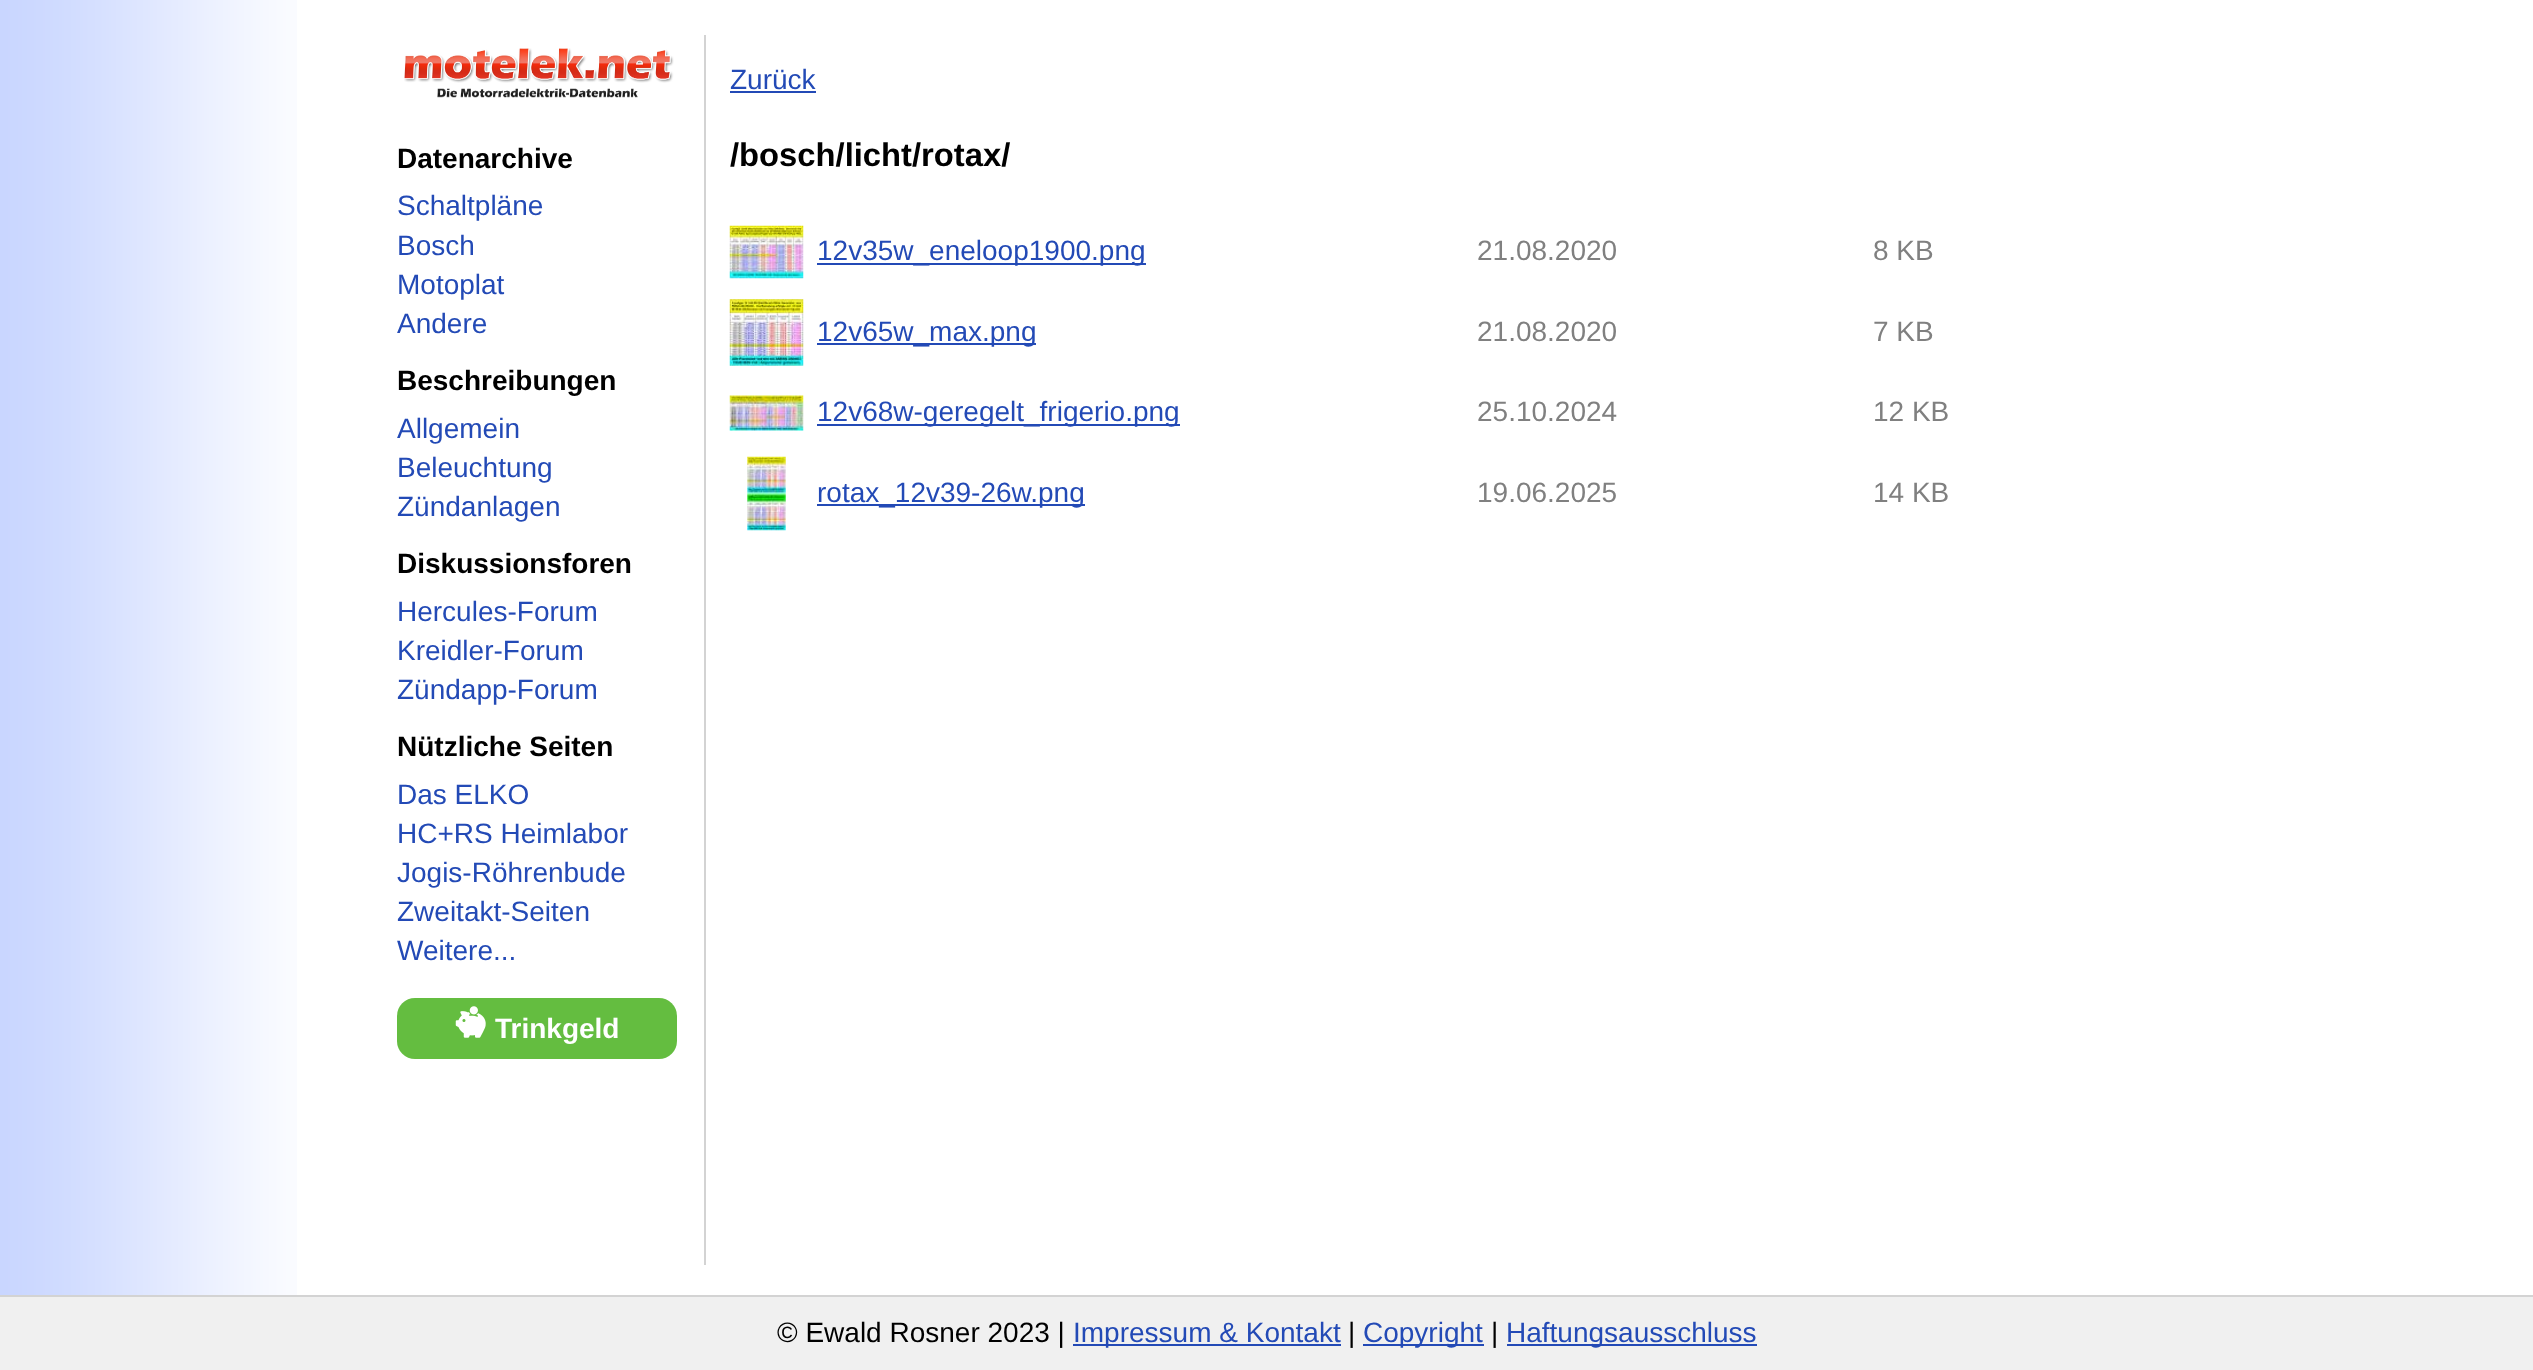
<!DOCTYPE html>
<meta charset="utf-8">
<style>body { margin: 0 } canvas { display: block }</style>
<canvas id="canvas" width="2533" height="1370"></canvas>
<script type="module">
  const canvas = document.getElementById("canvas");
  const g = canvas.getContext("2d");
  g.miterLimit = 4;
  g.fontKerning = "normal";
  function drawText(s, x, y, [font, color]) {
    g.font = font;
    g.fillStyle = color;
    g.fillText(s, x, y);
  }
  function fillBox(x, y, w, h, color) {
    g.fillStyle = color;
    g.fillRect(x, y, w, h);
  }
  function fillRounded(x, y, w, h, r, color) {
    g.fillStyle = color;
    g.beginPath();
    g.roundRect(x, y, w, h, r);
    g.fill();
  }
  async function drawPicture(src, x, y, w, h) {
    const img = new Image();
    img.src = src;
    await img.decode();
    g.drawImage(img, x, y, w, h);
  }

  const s1 = ["bold 28px Liberation Sans", "#000000"];
  const s2 = ["28px Liberation Sans", "#234AB6"];
  const s3 = ["bold 28px Liberation Sans", "#FFFFFF"];
  const s4 = ["bold 32.75px Liberation Sans", "#000000"];
  const s5 = ["28px Liberation Sans", "#808080"];
  const s6 = ["28px Liberation Sans", "#000000"];

  fillBox(0, 0, 2533, 1370, "#FFFFFF");
  await drawPicture("pic1.png", 0, 0, 297, 1295);
  await drawPicture("pic2.png", 404, 48, 270, 50);
  drawText("Datenarchive", 397, 168, s1);
  drawText("Schaltpläne", 397, 215, s2);
  drawText("Bosch", 397, 255, s2);
  drawText("Motoplat", 397, 294, s2);
  drawText("Andere", 397, 333, s2);
  drawText("Beschreibungen", 397, 390, s1);
  drawText("Allgemein", 397, 438, s2);
  drawText("Beleuchtung", 397, 477, s2);
  drawText("Zündanlagen", 397, 516, s2);
  drawText("Diskussionsforen", 397, 573, s1);
  drawText("Hercules-Forum", 397, 621, s2);
  drawText("Kreidler-Forum", 397, 660, s2);
  drawText("Zündapp-Forum", 397, 699, s2);
  drawText("Nützliche Seiten", 397, 756, s1);
  drawText("Das ELKO", 397, 804, s2);
  drawText("HC+RS Heimlabor", 397, 843, s2);
  drawText("Jogis-Röhrenbude", 397, 882, s2);
  drawText("Zweitakt-Seiten", 397, 921, s2);
  drawText("Weitere...", 397, 960, s2);
  fillRounded(397, 998, 280, 61, 18, "#64BD40");
  await drawPicture("pic3.png", 455, 1006, 31, 32);
  drawText("Trinkgeld", 495, 1038, s3);
  fillBox(704, 35, 2, 1230, "#D3D3D3");
  drawText("Zurück", 730, 89, s2);
  fillBox(730, 91, 86, 2, "#234AB6");
  drawText("/bosch/licht/rotax/", 730, 166, s4);
  await drawPicture("pic4.png", 729, 225, 75, 54);
  fillBox(817, 263, 329, 2, "#234AB6");
  drawText("12v35w_eneloop1900.png", 817, 260, s2);
  drawText("21.08.2020", 1477, 260, s5);
  drawText("8 KB", 1873, 260, s5);
  await drawPicture("pic5.png", 729, 299, 75, 67);
  fillBox(817, 343, 219, 2, "#234AB6");
  drawText("12v65w_max.png", 817, 341, s2);
  drawText("21.08.2020", 1477, 341, s5);
  drawText("7 KB", 1873, 341, s5);
  await drawPicture("pic6.png", 729, 395, 75, 36);
  fillBox(817, 424, 363, 2, "#234AB6");
  drawText("12v68w-geregelt_frigerio.png", 817, 421, s2);
  drawText("25.10.2024", 1477, 421, s5);
  drawText("12 KB", 1873, 421, s5);
  await drawPicture("pic7.png", 747, 456, 39, 75);
  fillBox(817, 504, 268, 2, "#234AB6");
  drawText("rotax_12v39-26w.png", 817, 502, s2);
  drawText("19.06.2025", 1477, 502, s5);
  drawText("14 KB", 1873, 502, s5);
  fillBox(0, 1297, 2533, 73, "#F0F0F0");
  fillBox(0, 1295, 2533, 2, "#D3D3D3");
  drawText("© Ewald Rosner 2023 |", 777, 1342, s6);
  fillBox(1073, 1344, 268, 2, "#234AB6");
  drawText("Impressum & Kontakt", 1073, 1342, s2);
  drawText("|", 1348, 1342, s6);
  fillBox(1363, 1344, 121, 2, "#234AB6");
  drawText("Copyright", 1363, 1342, s2);
  drawText("|", 1491, 1342, s6);
  fillBox(1507, 1344, 250, 2, "#234AB6");
  drawText("Haftungsausschluss", 1506, 1342, s2);
</script>
